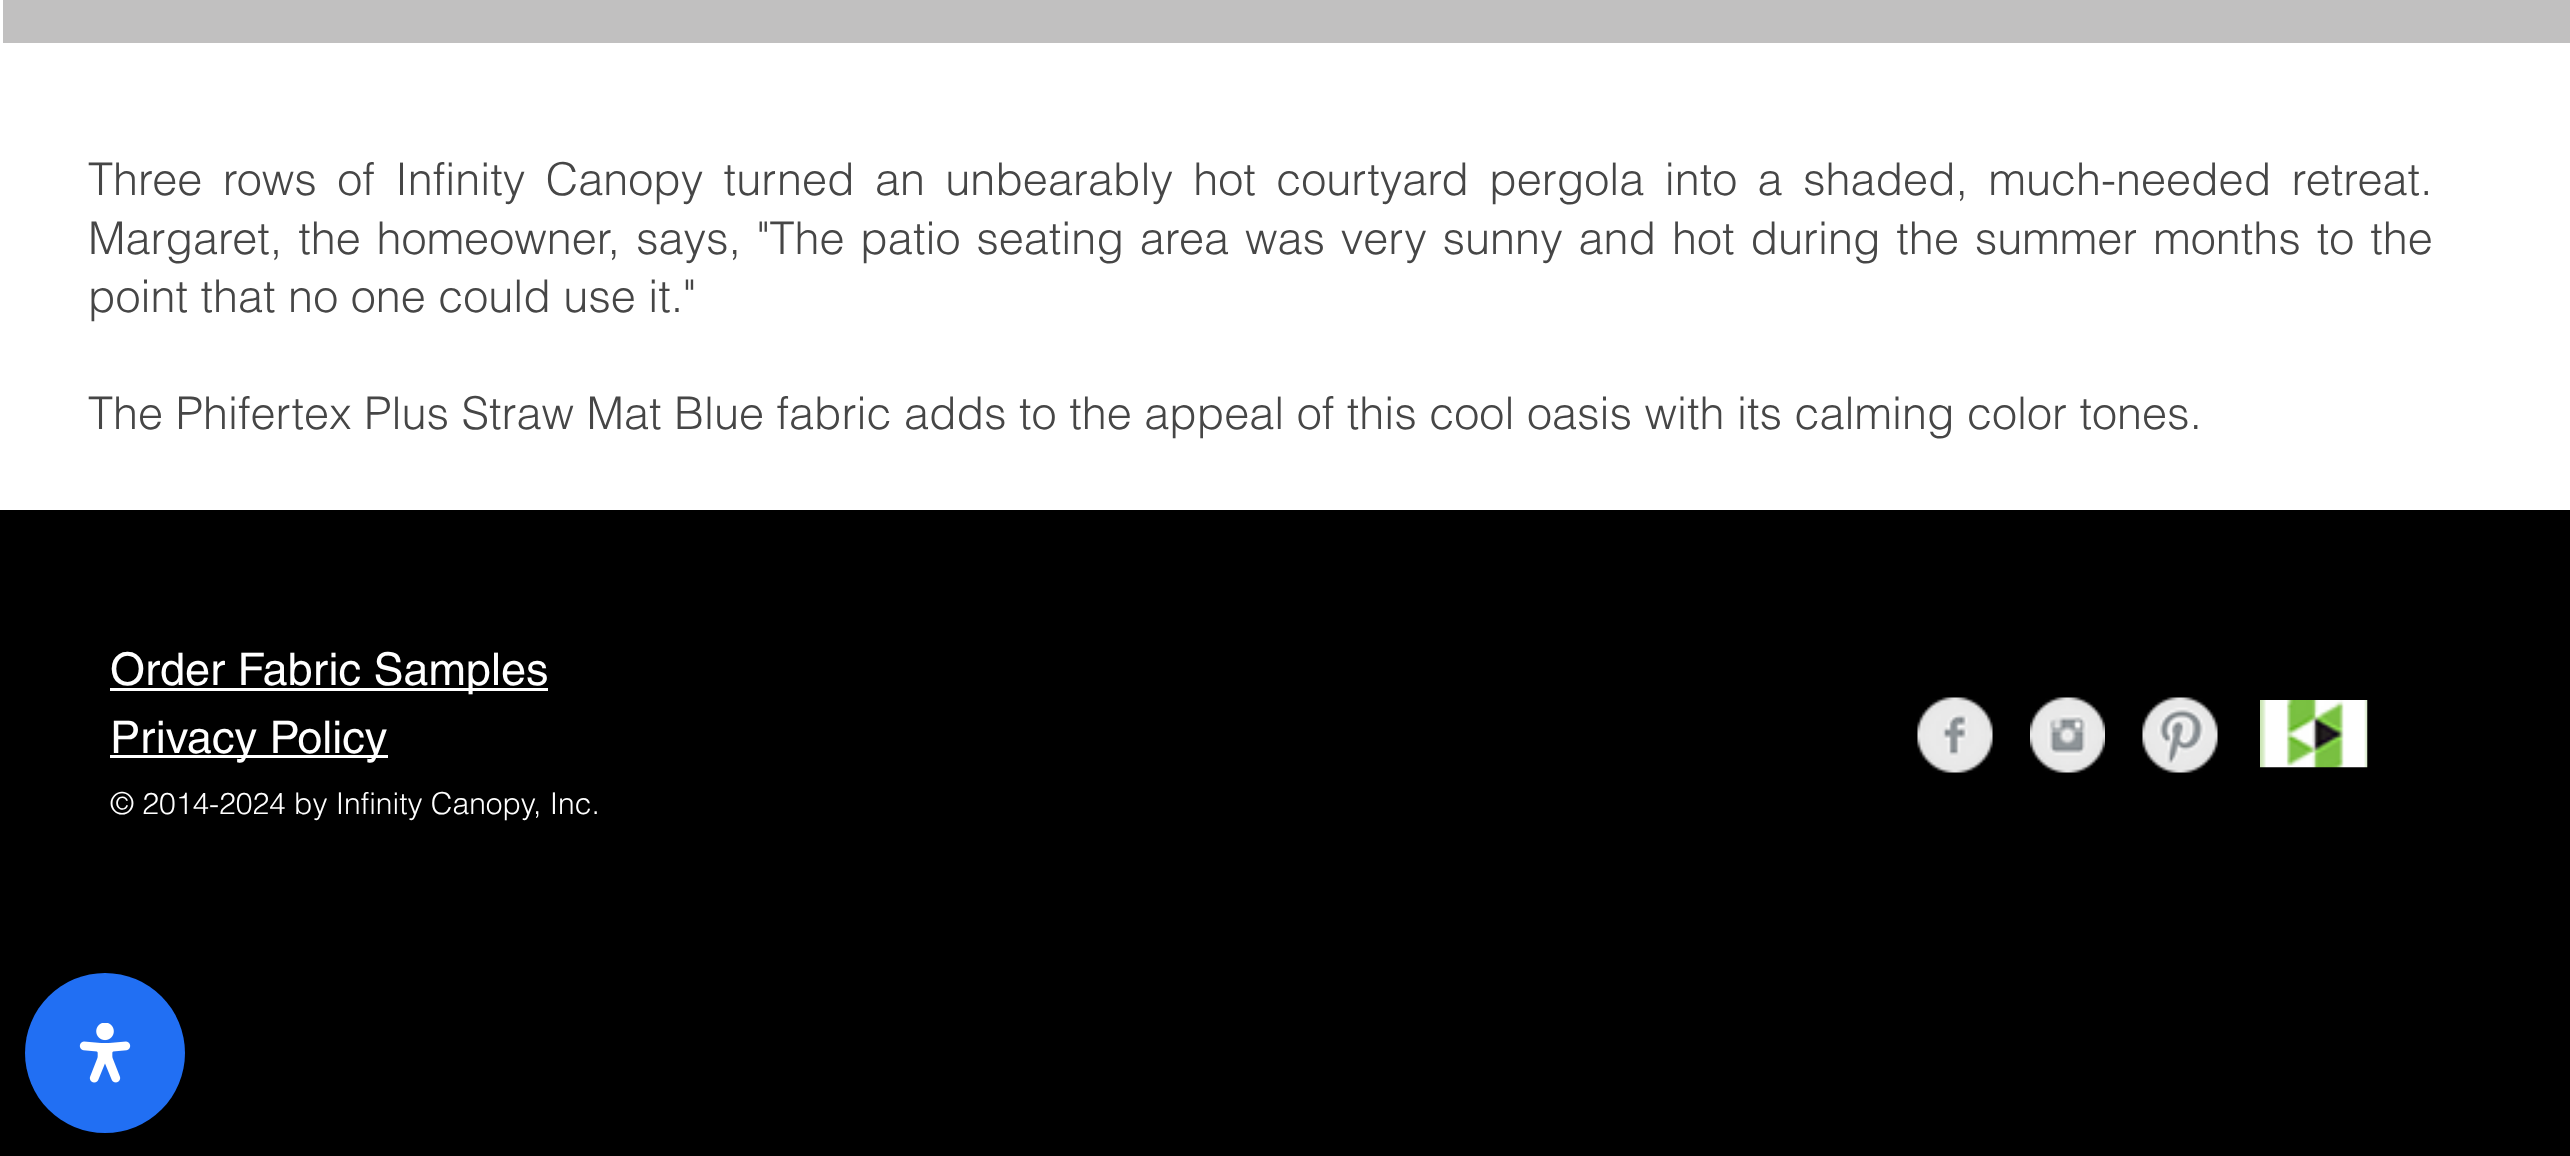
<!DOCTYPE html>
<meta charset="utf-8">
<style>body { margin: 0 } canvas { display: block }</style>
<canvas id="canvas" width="2570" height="1156"></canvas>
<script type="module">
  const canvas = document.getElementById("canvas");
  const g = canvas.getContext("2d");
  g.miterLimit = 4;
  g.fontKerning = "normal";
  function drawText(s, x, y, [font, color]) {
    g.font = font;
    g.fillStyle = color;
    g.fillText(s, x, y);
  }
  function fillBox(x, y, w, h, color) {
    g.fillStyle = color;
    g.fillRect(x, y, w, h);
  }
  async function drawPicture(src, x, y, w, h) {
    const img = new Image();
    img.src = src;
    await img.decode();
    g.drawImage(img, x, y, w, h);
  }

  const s1 = ["300 45px helvetica", "#464646"];
  const s2 = ["45px helvetica", "#FFFFFF"];
  const s3 = ["300 30px helvetica", "#FFFFFF"];

  fillBox(0, 0, 2570, 1156, "#FFFFFF");
  fillBox(3, 0, 2567, 43, "#C1C0C0");
  g.wordSpacing = "7.9px";
  drawText("Three rows of Infinity Canopy turned an unbearably hot courtyard pergola into a shaded, much-needed retreat.", 88, 195, s1);
  g.wordSpacing = "3.4px";
  drawText("Margaret, the homeowner, says, \"The patio seating area was very sunny and hot during the summer months to the", 88, 254, s1);
  g.wordSpacing = "0px";
  drawText("point that no one could use it.\"", 88, 312, s1);
  drawText("The Phifertex Plus Straw Mat Blue fabric adds to the appeal of this cool oasis with its calming color tones.", 88, 429, s1);
  fillBox(0, 510, 2570, 646, "#000000");
  fillBox(110, 688, 438, 3, "#FFFFFF");
  drawText("Order Fabric Samples", 110, 685, s2);
  fillBox(110, 755, 278, 3, "#FFFFFF");
  drawText("Privacy Policy", 110, 753, s2);
  await drawPicture("pic1.png", 1917, 697, 76, 76);
  await drawPicture("pic2.png", 2030, 697, 75, 76);
  await drawPicture("pic3.png", 2142, 697, 76, 76);
  await drawPicture("pic4.png", 2260, 700, 108, 68);
  drawText("© 2014-2024 by Infinity Canopy, Inc.", 110, 814, s3);
  g.fillStyle = "#216FF3";
  g.beginPath();
  g.arc(105, 1053, 80, 0, Math.PI * 2);
  g.fill();
  await drawPicture("pic5.png", 79, 1023, 52, 60);
</script>
